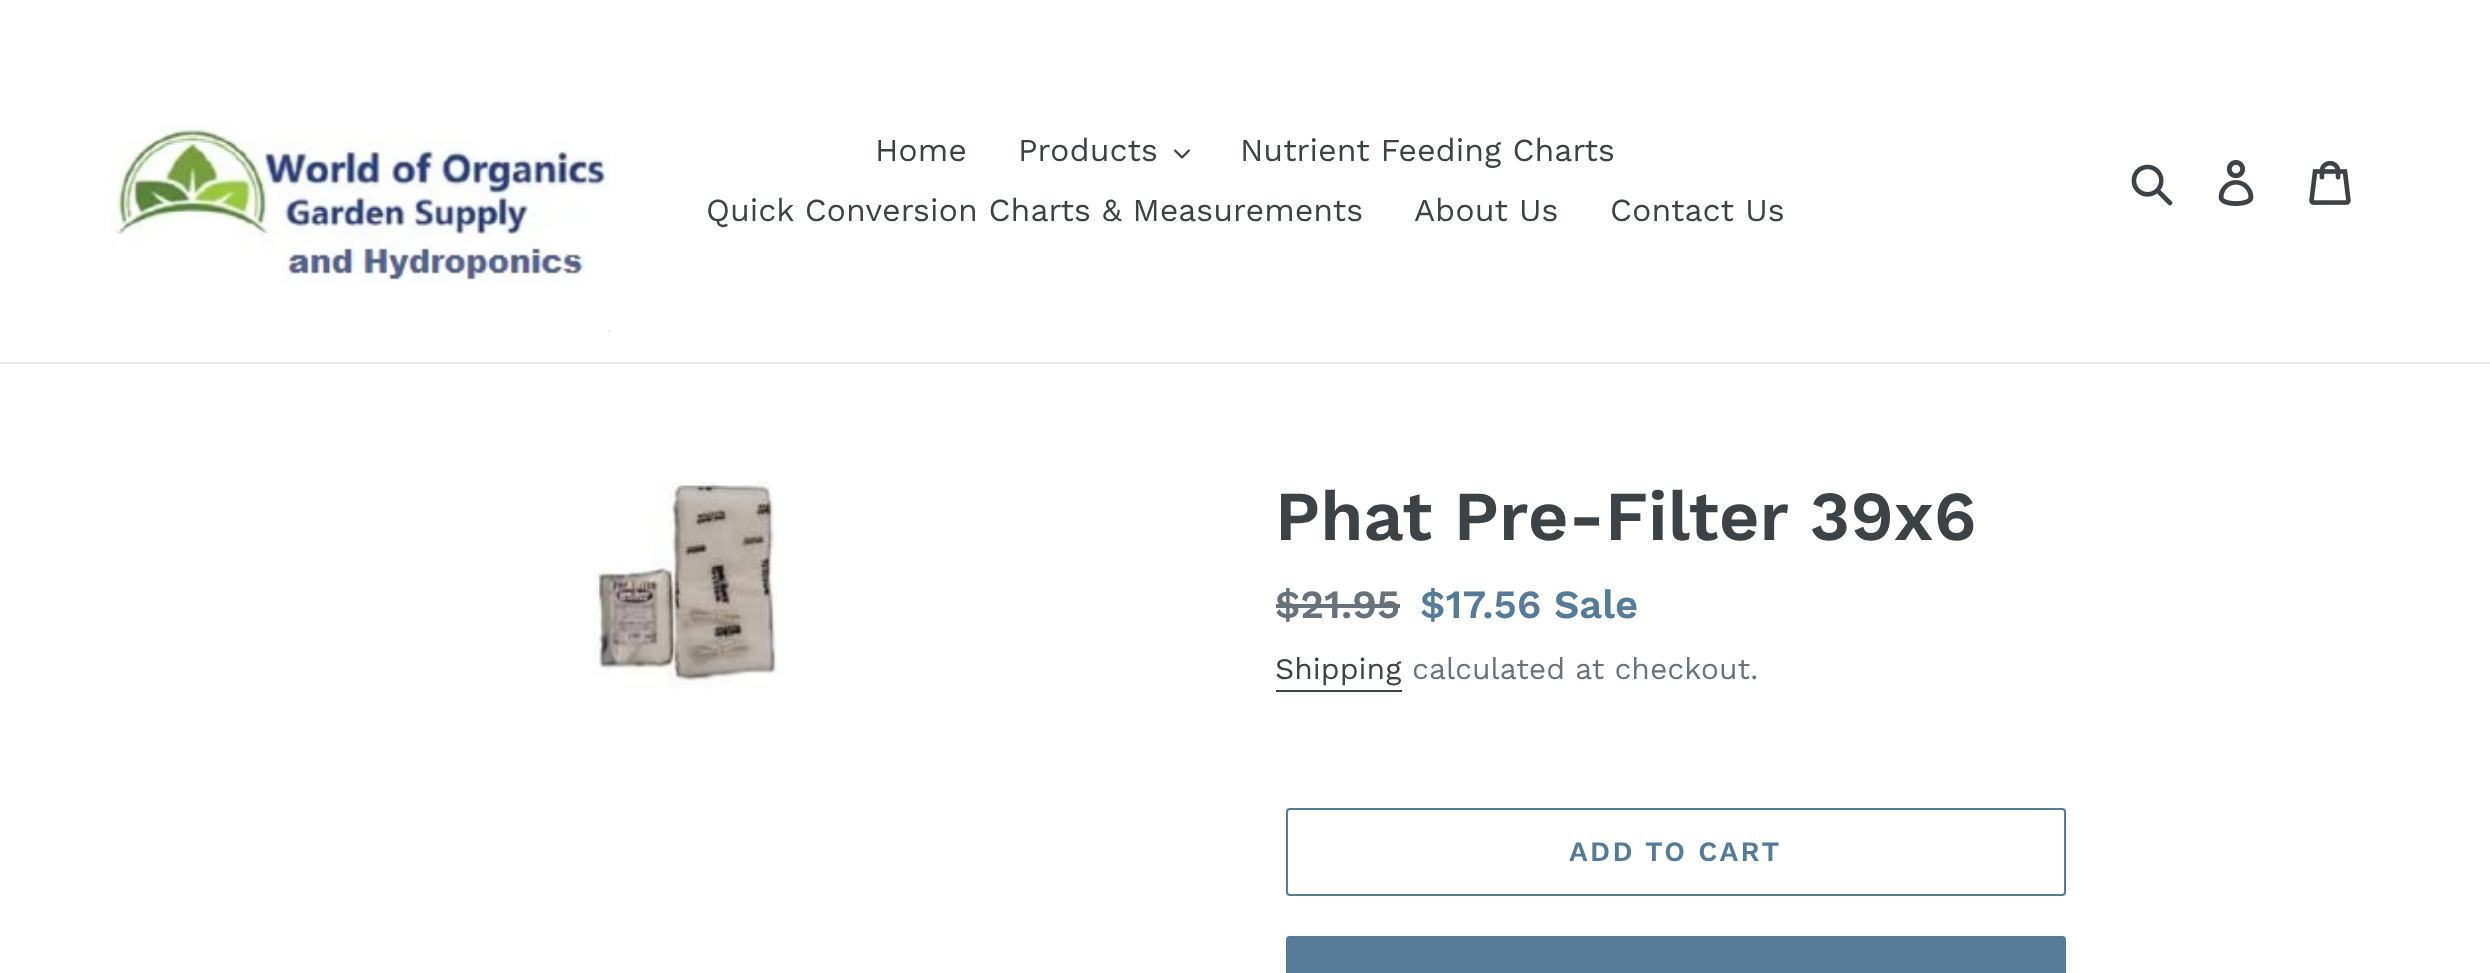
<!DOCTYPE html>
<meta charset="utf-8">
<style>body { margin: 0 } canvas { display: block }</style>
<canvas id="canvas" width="2490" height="973"></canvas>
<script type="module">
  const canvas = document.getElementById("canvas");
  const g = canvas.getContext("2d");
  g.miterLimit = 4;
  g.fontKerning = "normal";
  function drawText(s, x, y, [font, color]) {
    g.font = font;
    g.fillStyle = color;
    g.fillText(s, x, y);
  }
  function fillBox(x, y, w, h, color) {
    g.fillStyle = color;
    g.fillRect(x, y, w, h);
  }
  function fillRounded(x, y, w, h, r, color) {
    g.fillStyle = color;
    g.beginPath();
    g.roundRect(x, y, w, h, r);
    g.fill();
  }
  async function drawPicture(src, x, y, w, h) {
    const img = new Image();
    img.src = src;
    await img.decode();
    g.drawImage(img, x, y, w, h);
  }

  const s1 = ["32px Work Sans", "#3D4246"];
  const s2 = ["600 70px Work Sans", "#3D4246"];
  const s3 = ["600 40px Work Sans", "#69727B"];
  const s4 = ["600 40px Work Sans", "#557B97"];
  const s5 = ["30px Work Sans", "#3D4246"];
  const s6 = ["30px Work Sans", "#69727B"];
  const s7 = ["600 28px Work Sans", "#557B97"];

  fillBox(0, 0, 2490, 973, "#FFFFFF");
  fillBox(0, 362, 2490, 2, "#E8E9EB");
  await drawPicture("pic1.png", 110, 125, 500, 207);
  drawText("Home", 875, 161, s1);
  drawText("Products", 1018, 161, s1);
  await drawPicture("pic2.png", 1174, 149, 16, 10);
  drawText("Nutrient Feeding Charts", 1240, 161, s1);
  drawText("Quick Conversion Charts & Measurements", 706, 221, s1);
  drawText("About Us", 1414, 221, s1);
  drawText("Contact Us", 1610, 221, s1);
  await drawPicture("pic3.png", 2131, 164, 42, 42);
  await drawPicture("pic4.png", 2218, 160, 36, 46);
  await drawPicture("pic5.png", 2309, 160, 42, 45);
  await drawPicture("pic6.png", 593, 482, 185, 207);
  drawText("Phat Pre-Filter 39x6", 1275, 540, s2);
  drawText("$21.95", 1275, 618, s3);
  fillBox(1276, 604, 124, 4, "#69727B");
  drawText("$17.56 Sale", 1420, 618, s4);
  drawText("Shipping", 1275, 679, s5);
  fillBox(1276, 690, 126, 2, "#3D4246");
  drawText("calculated at checkout.", 1412, 679, s6);
  g.beginPath();
  g.roundRect(1287, 809, 778, 86, 3);
  g.strokeStyle = "#557B97";
  g.lineWidth = 2;
  g.stroke();
  g.letterSpacing = "2.25px";
  drawText("ADD TO CART", 1569, 861, s7);
  fillRounded(1286, 936, 780, 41, 4, "#557B97");
</script>
